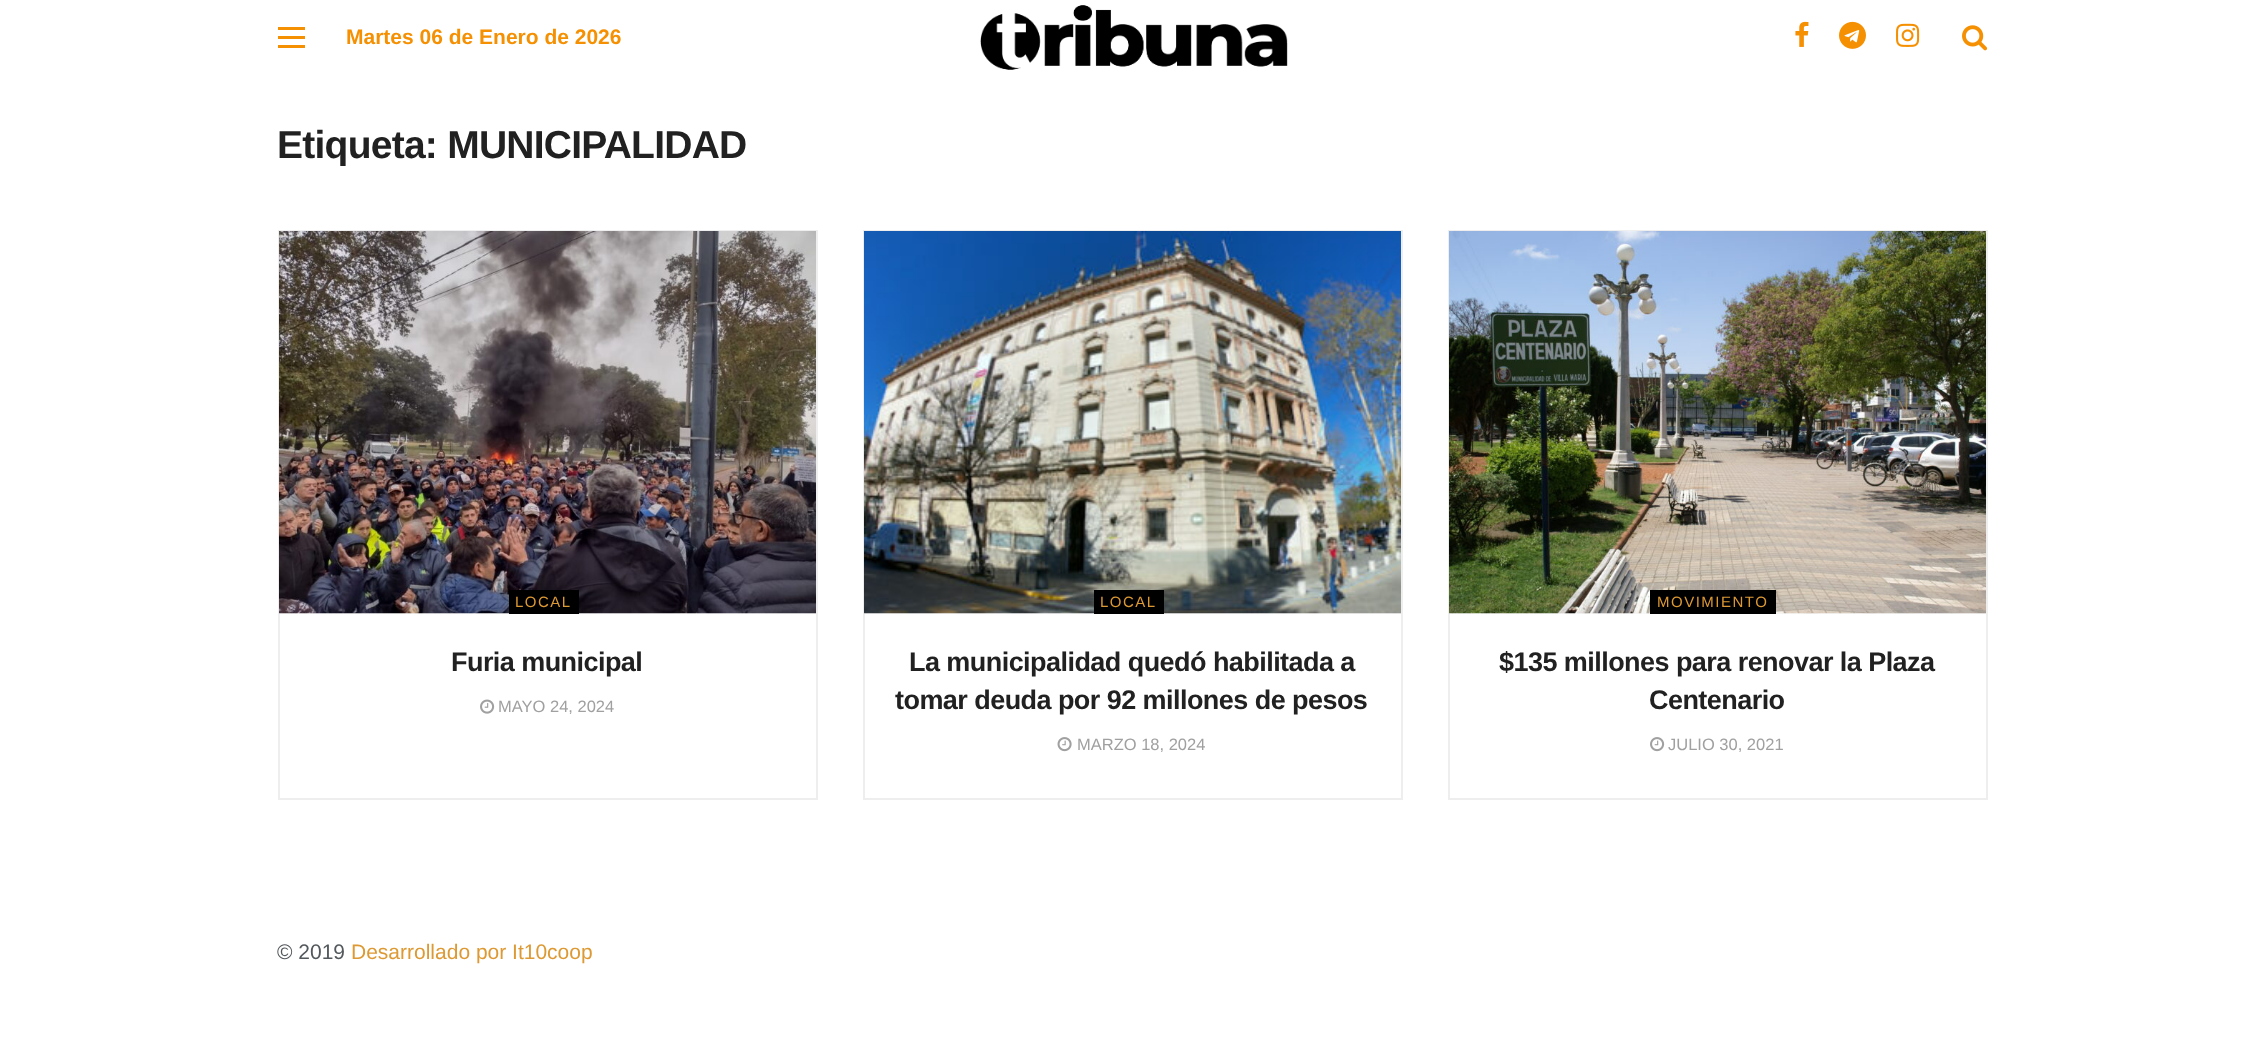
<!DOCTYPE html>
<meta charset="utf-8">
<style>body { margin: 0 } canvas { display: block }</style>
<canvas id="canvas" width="2263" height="1050"></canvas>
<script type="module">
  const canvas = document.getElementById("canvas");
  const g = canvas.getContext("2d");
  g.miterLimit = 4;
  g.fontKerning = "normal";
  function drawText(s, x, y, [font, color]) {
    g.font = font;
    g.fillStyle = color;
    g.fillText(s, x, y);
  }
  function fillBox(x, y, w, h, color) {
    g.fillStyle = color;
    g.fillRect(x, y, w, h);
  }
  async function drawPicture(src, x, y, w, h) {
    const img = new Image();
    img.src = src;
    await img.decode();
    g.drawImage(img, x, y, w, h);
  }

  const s1 = ["bold 21px Liberation Sans", "#F59003"];
  const s2 = ["bold 39px Liberation Sans", "#212121"];
  const s3 = ["15px Liberation Sans", "#DD9933"];
  const s4 = ["bold 27px Liberation Sans", "#212121"];
  const s5 = ["16.5px Liberation Sans", "#A0A0A0"];
  const s6 = ["21px Liberation Sans", "#53585C"];
  const s7 = ["21px Liberation Sans", "#DD9933"];

  fillBox(0, 0, 2263, 1050, "#FFFFFF");
  fillBox(278, 27, 27, 3, "#F59003");
  fillBox(278, 36, 27, 3, "#F59003");
  fillBox(278, 45, 27, 3, "#F59003");
  drawText("Martes 06 de Enero de 2026", 346, 44, s1);
  await drawPicture("pic1.png", 980, 5, 308, 65);
  await drawPicture("pic2.png", 1795, 21, 14, 26);
  await drawPicture("pic3.png", 1839, 21, 27, 28);
  await drawPicture("pic4.png", 1896, 23, 24, 24);
  await drawPicture("pic5.png", 1962, 25, 26, 26);
  g.letterSpacing = "-0.75px";
  drawText("Etiqueta: MUNICIPALIDAD", 277, 158, s2);
  g.strokeStyle = "#EEEEEE";
  g.lineWidth = 2;
  g.strokeRect(279, 231, 538, 568);
  fillBox(279, 613, 537, 1, "#F7F7F7");
  await drawPicture("pic6.png", 279, 231, 537, 383);
  fillBox(509, 590, 70, 24, "#000000");
  g.letterSpacing = "1.5px";
  drawText("LOCAL", 515, 607, s3);
  g.letterSpacing = "-0.55px";
  drawText("Furia municipal", 451, 671, s4);
  await drawPicture("pic7.png", 480, 699, 15, 15);
  g.letterSpacing = "0px";
  drawText("MAYO 24, 2024", 498, 712, s5);
  g.strokeRect(864, 231, 538, 568);
  fillBox(864, 613, 537, 1, "#F7F7F7");
  await drawPicture("pic8.png", 864, 231, 537, 383);
  fillBox(1094, 590, 70, 24, "#000000");
  g.letterSpacing = "1.5px";
  drawText("LOCAL", 1100, 607, s3);
  g.letterSpacing = "-0.55px";
  drawText("La municipalidad quedó habilitada a", 909, 671, s4);
  drawText("tomar deuda por 92 millones de pesos", 895, 709, s4);
  await drawPicture("pic9.png", 1057, 737, 15, 15);
  g.letterSpacing = "0px";
  drawText("MARZO 18, 2024", 1077, 750, s5);
  g.strokeRect(1449, 231, 538, 568);
  fillBox(1449, 613, 537, 1, "#F7F7F7");
  await drawPicture("pic10.png", 1449, 231, 537, 383);
  fillBox(1650, 590, 126, 24, "#000000");
  g.letterSpacing = "1.5px";
  drawText("MOVIMIENTO", 1657, 607, s3);
  g.letterSpacing = "-0.55px";
  drawText("$135 millones para renovar la Plaza", 1499, 671, s4);
  drawText("Centenario", 1649, 709, s4);
  await drawPicture("pic11.png", 1650, 737, 15, 15);
  g.letterSpacing = "0px";
  drawText("JULIO 30, 2021", 1668, 750, s5);
  drawText("© 2019", 277, 959, s6);
  drawText("Desarrollado por It10coop", 351, 959, s7);
</script>
